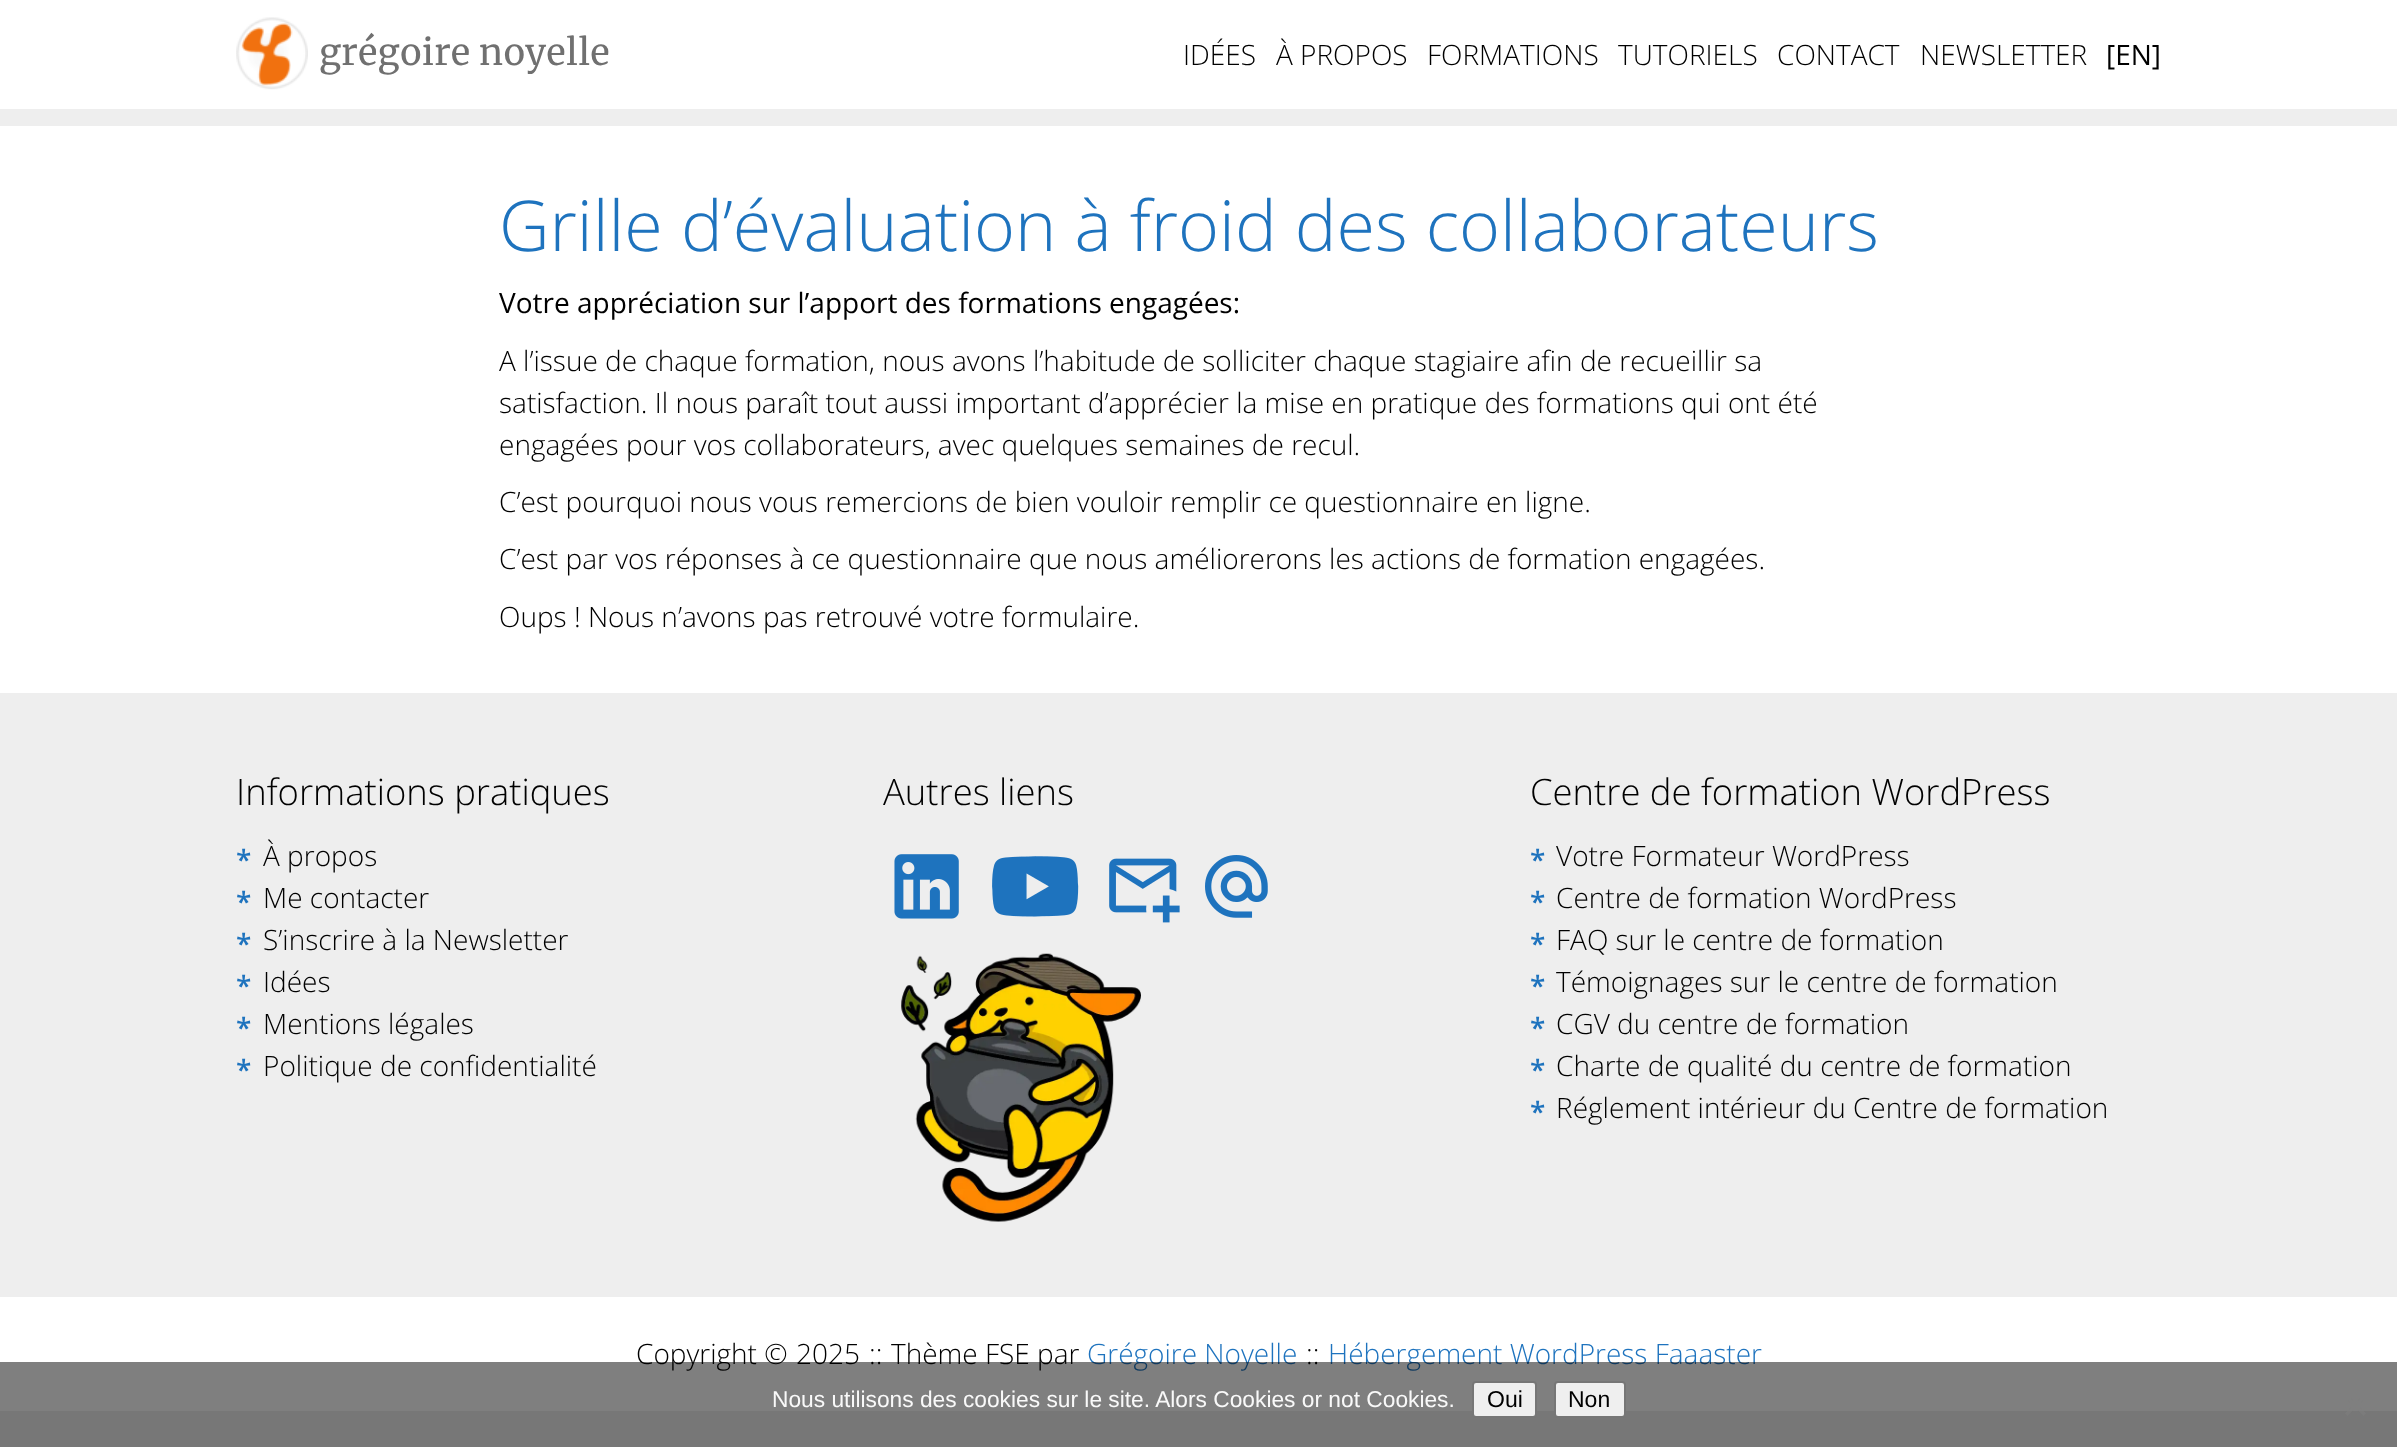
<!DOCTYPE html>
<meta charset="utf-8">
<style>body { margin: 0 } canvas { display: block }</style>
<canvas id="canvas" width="2397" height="1447"></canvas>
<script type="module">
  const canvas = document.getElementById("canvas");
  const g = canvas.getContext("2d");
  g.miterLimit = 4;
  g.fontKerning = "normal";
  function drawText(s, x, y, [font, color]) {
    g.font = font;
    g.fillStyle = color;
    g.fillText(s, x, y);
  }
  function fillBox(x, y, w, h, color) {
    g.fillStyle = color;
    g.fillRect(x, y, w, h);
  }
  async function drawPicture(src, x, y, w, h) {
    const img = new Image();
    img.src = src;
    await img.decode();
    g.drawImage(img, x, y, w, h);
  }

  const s1 = ["36.4px Merriweather", "#707070"];
  const s2 = ["300 28px Open Sans", "#000000"];
  const s3 = ["28px Open Sans", "#000000"];
  const s4 = ["300 70px Open Sans", "#1E73BE"];
  const s5 = ["300 36.4px Open Sans", "#000000"];
  const s6 = ["600 28px Open Sans", "#1E73BE"];
  const s7 = ["300 28px Open Sans", "#1E73BE"];
  const s8 = ["22.75px Liberation Sans", "#F9F9F9"];
  const s9 = ["23px Liberation Sans", "#000000"];

  fillBox(0, 0, 2397, 1447, "#EEEEEE");
  fillBox(0, 0, 2397, 109, "#FFFFFF");
  await drawPicture("pic1.png", 236, 17, 72, 73);
  drawText("grégoire noyelle", 319, 65, s1);
  drawText("IDÉES", 1183, 65, s2);
  drawText("À PROPOS", 1276, 65, s2);
  drawText("FORMATIONS", 1427, 65, s2);
  drawText("TUTORIELS", 1618, 65, s2);
  drawText("CONTACT", 1777, 65, s2);
  drawText("NEWSLETTER", 1920, 65, s2);
  drawText("[EN]", 2106, 65, s3);
  fillBox(0, 126, 2397, 567, "#FFFFFF");
  drawText("Grille d’évaluation à froid des collaborateurs", 499, 251, s4);
  drawText("Votre appréciation sur l’apport des formations engagées:", 499, 313, s3);
  drawText("A l’issue de chaque formation, nous avons l’habitude de solliciter chaque stagiaire afin de recueillir sa", 499, 371, s2);
  drawText("satisfaction. Il nous paraît tout aussi important d’apprécier la mise en pratique des formations qui ont été", 499, 413, s2);
  drawText("engagées pour vos collaborateurs, avec quelques semaines de recul.", 499, 455, s2);
  drawText("C’est pourquoi nous vous remercions de bien vouloir remplir ce questionnaire en ligne.", 499, 512, s2);
  drawText("C’est par vos réponses à ce questionnaire que nous améliorerons les actions de formation engagées.", 499, 569, s2);
  drawText("Oups ! Nous n’avons pas retrouvé votre formulaire.", 499, 627, s2);
  drawText("Informations pratiques", 236, 805, s5);
  drawText("*", 236, 870, s6);
  drawText("À propos", 263, 866, s2);
  drawText("*", 236, 912, s6);
  drawText("Me contacter", 263, 908, s2);
  drawText("*", 236, 954, s6);
  drawText("S’inscrire à la Newsletter", 263, 950, s2);
  drawText("*", 236, 996, s6);
  drawText("Idées", 263, 992, s2);
  drawText("*", 236, 1038, s6);
  drawText("Mentions légales", 263, 1034, s2);
  drawText("*", 236, 1080, s6);
  drawText("Politique de confidentialité", 263, 1076, s2);
  drawText("Autres liens", 883, 805, s5);
  await drawPicture("pic2.png", 894, 854, 65, 65);
  await drawPicture("pic3.png", 992, 856, 87, 61);
  await drawPicture("pic4.png", 1109, 858, 71, 65);
  await drawPicture("pic5.png", 1205, 855, 63, 63);
  await drawPicture("pic6.png", 901, 953, 240, 269);
  drawText("Centre de formation WordPress", 1530, 805, s5);
  drawText("*", 1530, 870, s6);
  drawText("Votre Formateur WordPress", 1556, 866, s2);
  drawText("*", 1530, 912, s6);
  drawText("Centre de formation WordPress", 1556, 908, s2);
  drawText("*", 1530, 954, s6);
  drawText("FAQ sur le centre de formation", 1556, 950, s2);
  drawText("*", 1530, 996, s6);
  drawText("Témoignages sur le centre de formation", 1556, 992, s2);
  drawText("*", 1530, 1038, s6);
  drawText("CGV du centre de formation", 1556, 1034, s2);
  drawText("*", 1530, 1080, s6);
  drawText("Charte de qualité du centre de formation", 1556, 1076, s2);
  drawText("*", 1530, 1122, s6);
  drawText("Réglement intérieur du Centre de formation", 1556, 1118, s2);
  fillBox(0, 1297, 2397, 114, "#FFFFFF");
  drawText("Copyright ©", 636, 1364, s2);
  drawText("2025", 796, 1364, s2);
  drawText("::", 869, 1364, s2);
  drawText("Thème FSE par", 891, 1364, s2);
  drawText("Grégoire Noyelle", 1087, 1364, s7);
  drawText("::", 1306, 1364, s2);
  drawText("Hébergement WordPress Faaaster", 1328, 1364, s7);
  fillBox(0, 1362, 2397, 85, "rgba(0, 0, 0, 0.5)");
  drawText("Nous utilisons des cookies sur le site. Alors Cookies or not Cookies.", 772, 1407, s8);
  g.fillStyle = "#EFEFEF";
  g.beginPath();
  g.roundRect(1473, 1382, 63, 35, 3);
  g.fill();
  g.strokeStyle = "#767676";
  g.lineWidth = 2;
  g.stroke();
  drawText("Oui", 1487, 1407, s9);
  g.fillStyle = "#EFEFEF";
  g.beginPath();
  g.roundRect(1555, 1382, 70, 35, 3);
  g.fill();
  g.stroke();
  drawText("Non", 1568, 1407, s9);
  g.fillStyle = "rgba(128, 128, 128, 0.5)";
  g.beginPath();
  g.moveTo(2363.5, 1394.5);
  g.lineTo(2366, 1397);
  g.lineTo(2347.5, 1416);
  g.lineTo(2345, 1413.5);
  g.closePath();
  g.fill();
  g.beginPath();
  g.moveTo(2345, 1397);
  g.lineTo(2347.5, 1394.5);
  g.lineTo(2366, 1413.5);
  g.lineTo(2363.5, 1416);
  g.closePath();
  g.fill();
</script>
